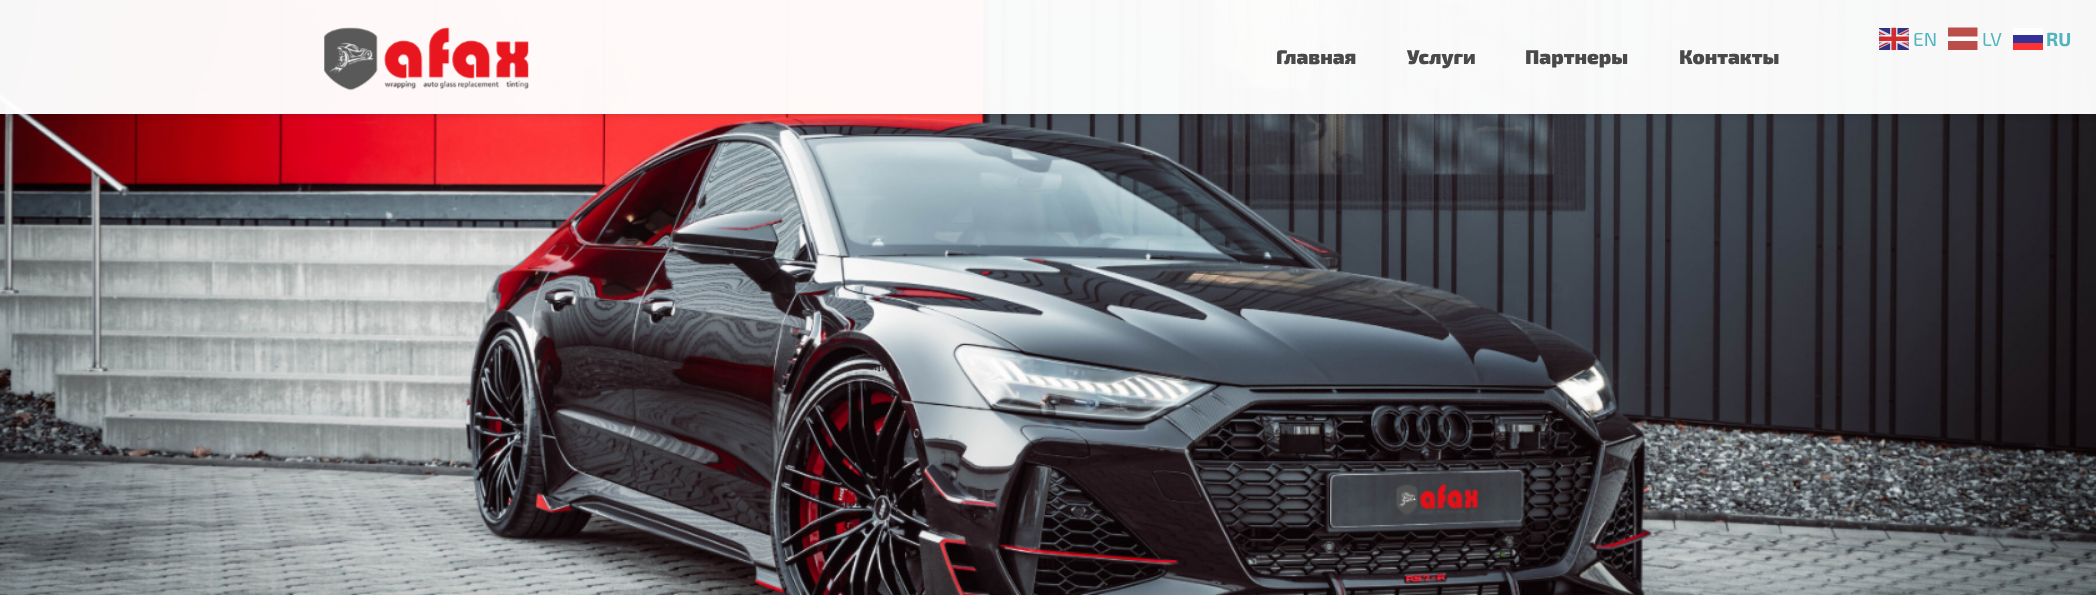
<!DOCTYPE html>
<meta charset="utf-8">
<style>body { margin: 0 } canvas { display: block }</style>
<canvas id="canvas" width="2096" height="595"></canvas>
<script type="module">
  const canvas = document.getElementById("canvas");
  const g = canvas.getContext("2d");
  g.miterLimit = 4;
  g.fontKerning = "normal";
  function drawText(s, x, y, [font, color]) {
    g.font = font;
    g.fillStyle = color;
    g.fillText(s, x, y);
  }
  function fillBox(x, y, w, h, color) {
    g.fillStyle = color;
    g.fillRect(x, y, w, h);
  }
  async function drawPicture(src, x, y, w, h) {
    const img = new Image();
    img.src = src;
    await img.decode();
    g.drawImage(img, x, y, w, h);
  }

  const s1 = ["19px 'Exo 2'", "#51B4BE"];
  const s2 = ["bold 19px 'Exo 2'", "#51B4BE"];
  const s3 = ["900 20px 'Exo 2'", "#494949"];

  fillBox(0, 0, 2096, 595, "#FFFFFF");
  await drawPicture("pic2.png", 0, 0, 2096, 595);
  g.save();
  g.beginPath();
  g.moveTo(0, 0);
  g.lineTo(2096, 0);
  g.lineTo(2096, 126);
  g.lineTo(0, 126);
  g.closePath();
  g.moveTo(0, 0);
  g.lineTo(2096, 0);
  g.lineTo(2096, 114);
  g.lineTo(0, 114);
  g.closePath();
  g.clip("evenodd");
  g.fillStyle = "rgba(0, 0, 0, 0.1)";
  g.filter = "blur(3px)";
  g.beginPath();
  g.rect(0, 3, 2096, 113);
  g.fill();
  g.filter = "none";
  g.restore();
  fillBox(0, 0, 2096, 114, "rgba(255, 255, 255, 0.97)");
  await drawPicture("pic1.png", 1879, 27, 30, 23);
  drawText("EN", 1913, 46, s1);
  drawText("LV", 1982, 46, s1);
  fillBox(1948, 28, 30, 22, "#FEFEFE");
  g.save();
  g.beginPath();
  g.rect(1948, 24, 30, 30);
  g.clip();
  g.fillStyle = "#BB4E49";
  g.beginPath();
  g.moveTo(1947.5, 27.5);
  g.lineTo(1977.5, 27.5);
  g.lineTo(1977.5, 36.5);
  g.lineTo(1947.5, 36.5);
  g.closePath();
  g.moveTo(1947.5, 41);
  g.lineTo(1977.5, 41);
  g.lineTo(1977.5, 50);
  g.lineTo(1947.5, 50);
  g.closePath();
  g.fill("evenodd");
  g.restore();
  drawText("RU", 2046, 46, s2);
  fillBox(2013, 28, 30, 7, "#FEFEFE");
  fillBox(2013, 35, 30, 8, "#323297");
  fillBox(2013, 43, 30, 7, "#FD3233");
  await drawPicture("pic3.png", 324, 27, 205, 64);
  drawText("Главная", 1276, 64, s3);
  drawText("Услуги", 1407, 64, s3);
  drawText("Партнеры", 1525, 64, s3);
  drawText("Контакты", 1679, 64, s3);
</script>
